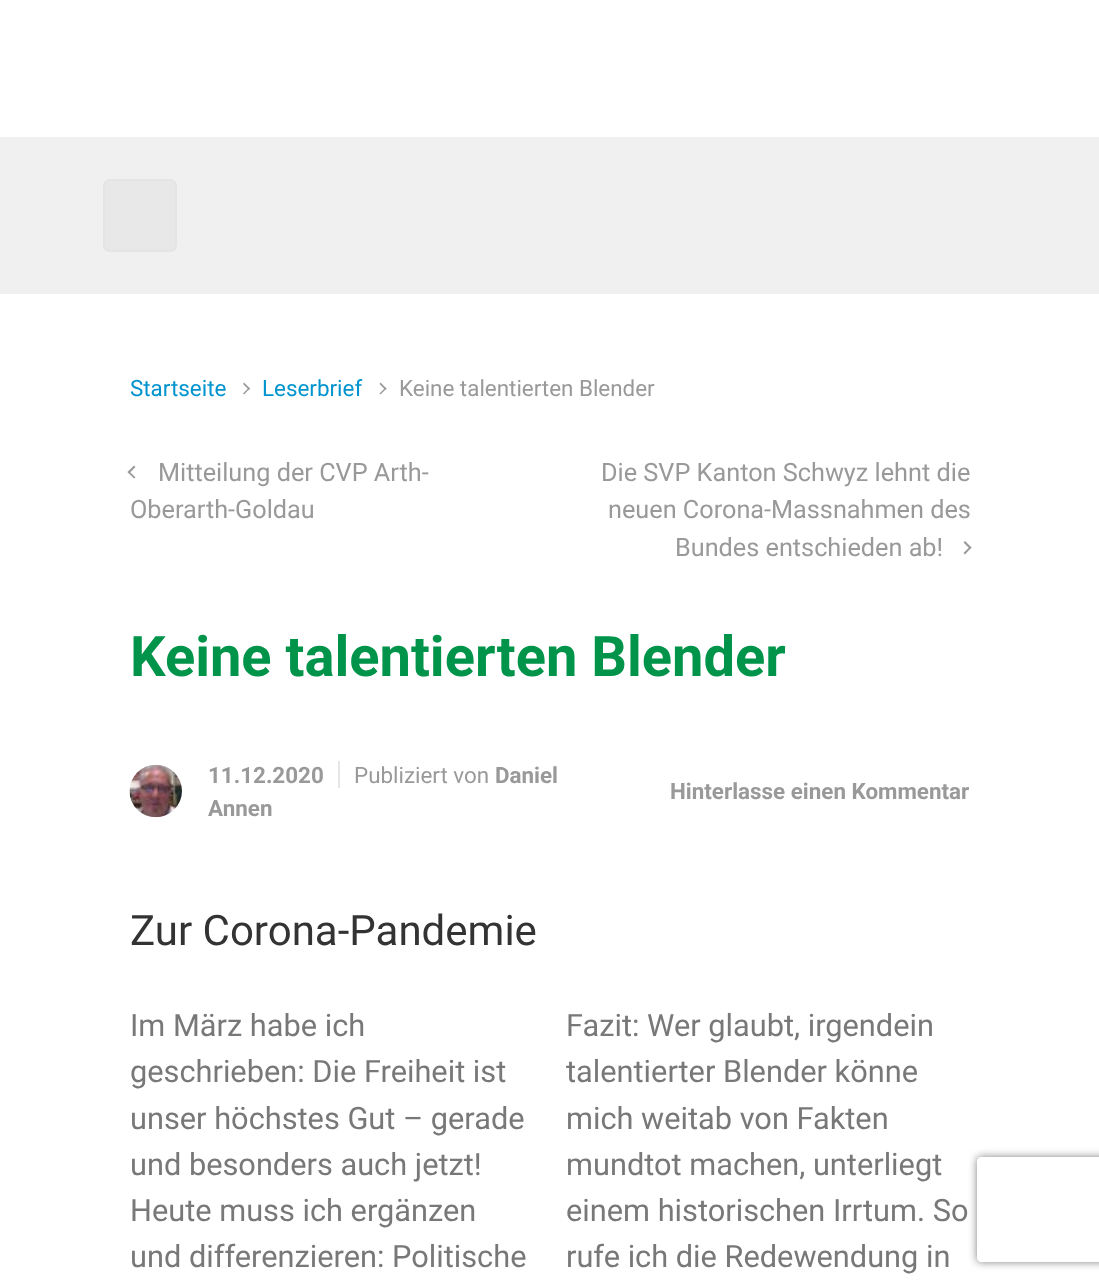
<!DOCTYPE html>
<meta charset="utf-8">
<style>body { margin: 0 } canvas { display: block }</style>
<canvas id="canvas" width="1099" height="1286"></canvas>
<script type="module">
  const canvas = document.getElementById("canvas");
  const g = canvas.getContext("2d");
  g.miterLimit = 4;
  g.fontKerning = "normal";
  function drawText(s, x, y, [font, color]) {
    g.font = font;
    g.fillStyle = color;
    g.fillText(s, x, y);
  }
  function fillBox(x, y, w, h, color) {
    g.fillStyle = color;
    g.fillRect(x, y, w, h);
  }
  async function drawPicture(src, x, y, w, h) {
    const img = new Image();
    img.src = src;
    await img.decode();
    g.drawImage(img, x, y, w, h);
  }

  const s1 = ["22.4px Roboto", "#0094CE"];
  const s2 = ["22.4px Roboto", "#999999"];
  const s3 = ["25.25px Roboto", "#999999"];
  const s4 = ["bold 56px Roboto", "#00944A"];
  const s5 = ["bold 22.4px Roboto", "#999999"];
  const s6 = ["42px Roboto", "#333333"];
  const s7 = ["30.75px Roboto", "#787878"];

  fillBox(0, 0, 1099, 1286, "#FFFFFF");
  fillBox(0, 137, 1099, 157, "#F0F0F0");
  g.fillStyle = "#E8E8E8";
  g.beginPath();
  g.roundRect(104, 180, 72, 71, 6);
  g.fill();
  g.strokeStyle = "#E4E4E4";
  g.lineWidth = 2;
  g.stroke();
  drawText("Startseite", 130, 396, s1);
  g.fillStyle = "#999999";
  g.beginPath();
  g.moveTo(243, 384);
  g.lineTo(244, 382.5);
  g.lineTo(250, 388.5);
  g.lineTo(249, 390);
  g.closePath();
  g.fill();
  g.beginPath();
  g.moveTo(243, 393.5);
  g.lineTo(249, 387.5);
  g.lineTo(250, 388.5);
  g.lineTo(244, 394.5);
  g.closePath();
  g.fill();
  drawText("Leserbrief", 262, 396, s1);
  g.fillStyle = "#999999";
  g.beginPath();
  g.moveTo(379.5, 384);
  g.lineTo(380.5, 382.5);
  g.lineTo(386.5, 388.5);
  g.lineTo(385.5, 390);
  g.closePath();
  g.fill();
  g.beginPath();
  g.moveTo(379.5, 393.5);
  g.lineTo(385.5, 387.5);
  g.lineTo(386.5, 388.5);
  g.lineTo(380.5, 394.5);
  g.closePath();
  g.fill();
  drawText("Keine talentierten Blender", 399, 396, s2);
  g.beginPath();
  g.moveTo(135.5, 477.5);
  g.lineTo(134, 478.5);
  g.lineTo(127.5, 472);
  g.lineTo(129, 471);
  g.closePath();
  g.fill();
  g.beginPath();
  g.moveTo(135.5, 467);
  g.lineTo(129, 473.5);
  g.lineTo(127.5, 472);
  g.lineTo(134, 465.5);
  g.closePath();
  g.fill();
  drawText("Mitteilung der CVP Arth-", 158, 481, s3);
  drawText("Oberarth-Goldau", 130, 518, s3);
  drawText("Die SVP Kanton Schwyz lehnt die", 601, 481, s3);
  drawText("neuen Corona-Massnahmen des", 608, 518, s3);
  drawText("Bundes entschieden ab!", 675, 556, s3);
  g.beginPath();
  g.moveTo(963.5, 542.5);
  g.lineTo(965, 541);
  g.lineTo(971.5, 547.5);
  g.lineTo(970, 549);
  g.closePath();
  g.fill();
  g.beginPath();
  g.moveTo(963.5, 553);
  g.lineTo(970, 546.5);
  g.lineTo(971.5, 547.5);
  g.lineTo(965, 554.5);
  g.closePath();
  g.fill();
  drawText("Keine talentierten Blender", 130, 676, s4);
  await drawPicture("pic1.png", 129, 764, 53, 54);
  drawText("11.12.2020", 208, 783, s5);
  fillBox(338, 761, 2, 27, "#E6E6E6");
  drawText("Publiziert von", 354, 783, s2);
  drawText("Daniel", 495, 783, s5);
  drawText("Annen", 208, 816, s5);
  drawText("Hinterlasse einen Kommentar", 670, 799, s5);
  drawText("Zur Corona-Pandemie", 130, 945, s6);
  drawText("Im März habe ich", 130, 1036, s7);
  drawText("geschrieben: Die Freiheit ist", 130, 1082, s7);
  drawText("unser höchstes Gut – gerade", 130, 1129, s7);
  drawText("und besonders auch jetzt!", 130, 1175, s7);
  drawText("Heute muss ich ergänzen", 130, 1221, s7);
  drawText("und differenzieren: Politische", 130, 1267, s7);
  drawText("Fazit: Wer glaubt, irgendein", 566, 1036, s7);
  drawText("talentierter Blender könne", 566, 1082, s7);
  drawText("mich weitab von Fakten", 566, 1129, s7);
  drawText("mundtot machen, unterliegt", 566, 1175, s7);
  drawText("einem historischen Irrtum. So", 566, 1221, s7);
  drawText("rufe ich die Redewendung in", 566, 1267, s7);
  g.save();
  g.beginPath();
  g.moveTo(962, 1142);
  g.lineTo(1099, 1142);
  g.lineTo(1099, 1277);
  g.lineTo(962, 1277);
  g.closePath();
  g.moveTo(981, 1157);
  g.lineTo(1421, 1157);
  g.bezierCurveTo(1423, 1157, 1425, 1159, 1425, 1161);
  g.lineTo(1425, 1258);
  g.bezierCurveTo(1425, 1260, 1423, 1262, 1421, 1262);
  g.lineTo(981, 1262);
  g.bezierCurveTo(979, 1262, 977, 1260, 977, 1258);
  g.lineTo(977, 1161);
  g.bezierCurveTo(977, 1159, 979, 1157, 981, 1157);
  g.closePath();
  g.clip("evenodd");
  g.fillStyle = "#808080";
  g.filter = "blur(4.5px)";
  g.beginPath();
  g.roundRect(977, 1157, 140, 105, 4);
  g.fill();
  g.filter = "none";
  g.restore();
</script>
